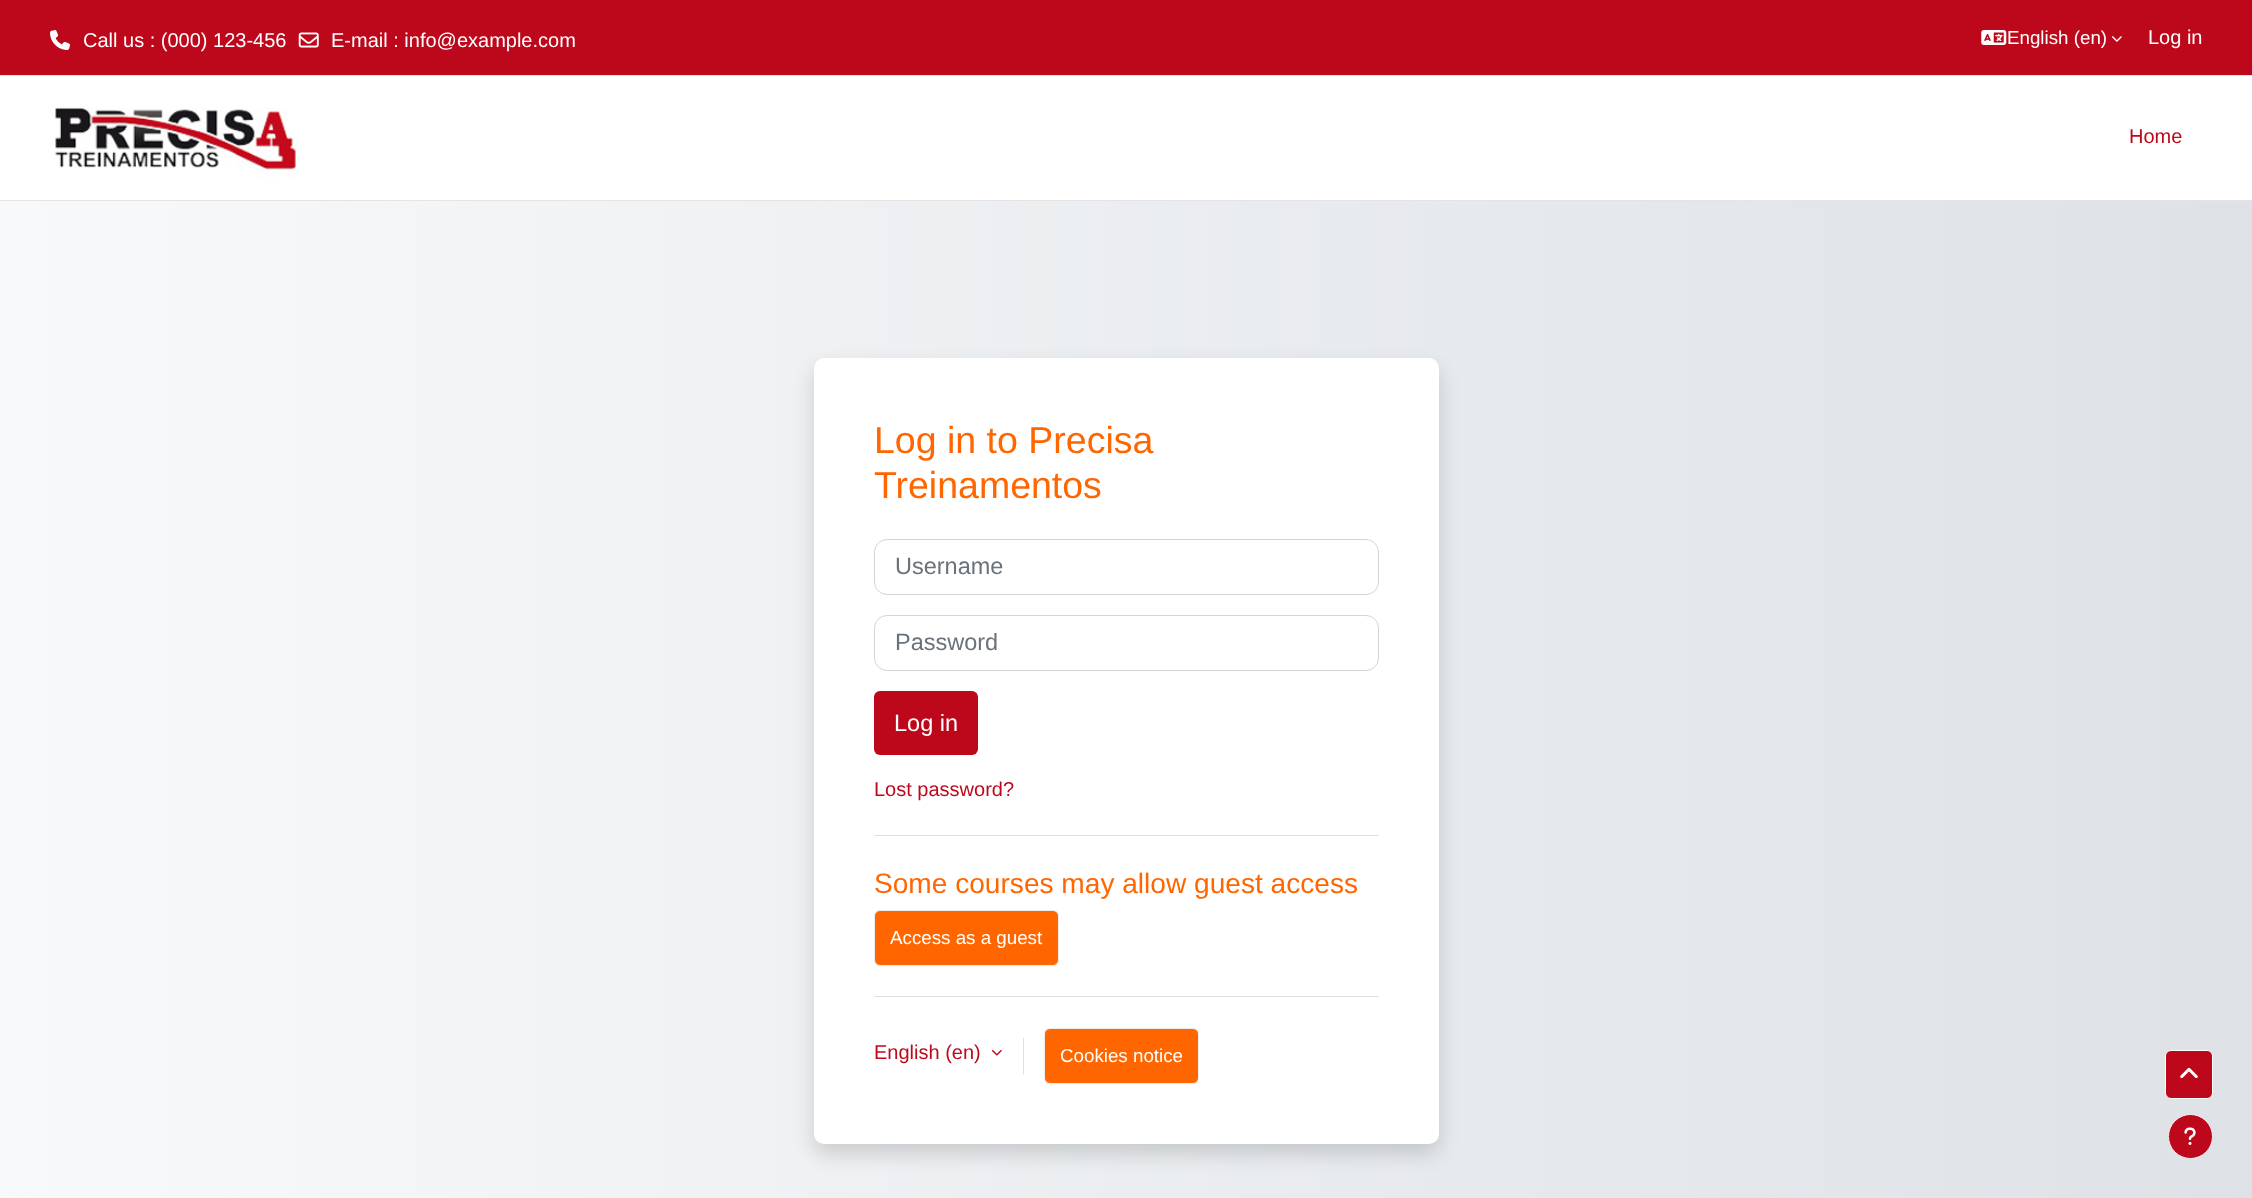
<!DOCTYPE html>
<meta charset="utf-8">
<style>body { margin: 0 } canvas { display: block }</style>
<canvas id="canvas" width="2252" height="1198"></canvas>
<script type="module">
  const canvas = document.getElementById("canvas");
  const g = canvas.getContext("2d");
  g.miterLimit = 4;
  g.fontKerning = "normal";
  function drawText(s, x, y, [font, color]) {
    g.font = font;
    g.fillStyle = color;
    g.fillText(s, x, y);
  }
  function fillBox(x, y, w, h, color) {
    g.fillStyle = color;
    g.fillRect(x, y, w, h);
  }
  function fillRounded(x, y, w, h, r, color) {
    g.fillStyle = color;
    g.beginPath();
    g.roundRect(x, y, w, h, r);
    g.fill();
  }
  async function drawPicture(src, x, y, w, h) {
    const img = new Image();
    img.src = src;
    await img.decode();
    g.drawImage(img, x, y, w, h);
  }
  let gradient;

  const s1 = ["20px Liberation Sans", "#FFFFFF"];
  const s2 = ["18.75px Liberation Sans", "#FFFFFF"];
  const s3 = ["20px Liberation Sans", "#BD081B"];
  const s4 = ["37.5px Liberation Sans", "#FF6600"];
  const s5 = ["23.5px Liberation Sans", "#6A737B"];
  const s6 = ["23.5px Liberation Sans", "#FFFFFF"];
  const s7 = ["28.1px Liberation Sans", "#FF6600"];

  fillBox(0, 0, 2252, 1198, "#FFFFFF");
  fillBox(0, 0, 2252, 75, "#BD081B");
  fillBox(0, 75, 2252, 1, "#E8E3E3");
  await drawPicture("pic1.png", 50, 30, 20, 20);
  drawText("Call us : (000) 123-456", 83, 47, s1);
  await drawPicture("pic2.png", 298, 32, 21, 16);
  drawText("E-mail : info@example.com", 331, 47, s1);
  await drawPicture("pic3.png", 1981, 30, 26, 15);
  drawText("English (en)", 2007, 44, s2);
  await drawPicture("pic4.png", 2112, 36, 10, 6);
  drawText("Log in", 2148, 44, s1);
  fillBox(0, 200, 2252, 1, "#E8E3E3");
  await drawPicture("pic5.png", 55, 107, 243, 71);
  drawText("Home", 2129, 143, s3);
  gradient = g.createLinearGradient(0, 733, 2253, 733);
  gradient.addColorStop(0, "#F8F9FA");
  gradient.addColorStop(1, "#DEE2E6");
  g.fillStyle = gradient;
  g.fillRect(0, 201, 2252, 997);
  g.fillStyle = "rgba(0, 0, 0, 0.15)";
  g.filter = "blur(10px)";
  g.beginPath();
  g.roundRect(814, 368, 625, 786, 10);
  g.fill();
  g.filter = "none";
  fillRounded(814, 358, 625, 786, 10, "#FFFFFF");
  drawText("Log in to Precisa", 874, 453, s4);
  drawText("Treinamentos", 874, 498, s4);
  g.beginPath();
  g.roundRect(874.5, 539.5, 504, 55, 12.5);
  g.strokeStyle = "#D5D5D5";
  g.stroke();
  drawText("Username", 895, 574, s5);
  g.beginPath();
  g.roundRect(874.5, 615.5, 504, 55, 12.5);
  g.stroke();
  drawText("Password", 895, 650, s5);
  fillRounded(874, 691, 104, 64, 6, "#BD081B");
  drawText("Log in", 894, 731, s6);
  drawText("Lost password?", 874, 796, s3);
  fillBox(874, 835, 505, 1, "#DEE2E6");
  drawText("Some courses may allow guest access", 874, 893, s7);
  g.beginPath();
  g.roundRect(874.5, 910.5, 184, 55, 5.5);
  g.fill();
  g.strokeStyle = "#EEEEEE";
  g.stroke();
  drawText("Access as a guest", 890, 944, s2);
  fillBox(874, 996, 505, 1, "#DEE2E6");
  drawText("English (en)", 874, 1059, s3);
  await drawPicture("pic6.png", 992, 1050, 10, 6);
  fillBox(1023, 1038, 1, 37, "#DEE2E6");
  g.fillStyle = "#FF6600";
  g.beginPath();
  g.roundRect(1044.5, 1028.5, 154, 55, 5.5);
  g.fill();
  g.stroke();
  drawText("Cookies notice", 1060, 1062, s2);
  g.fillStyle = "#BD081B";
  g.beginPath();
  g.roundRect(2165.5, 1050.5, 47, 48, 5.5);
  g.fill();
  g.strokeStyle = "#FFFFFF";
  g.stroke();
  await drawPicture("pic7.png", 2180, 1067, 18, 12);
  g.beginPath();
  g.arc(2190.5, 1136.5, 22, 0, Math.PI * 2);
  g.fill();
  g.strokeStyle = "#EEEEEE";
  g.stroke();
  await drawPicture("pic8.png", 2184, 1127, 12, 18);
</script>
